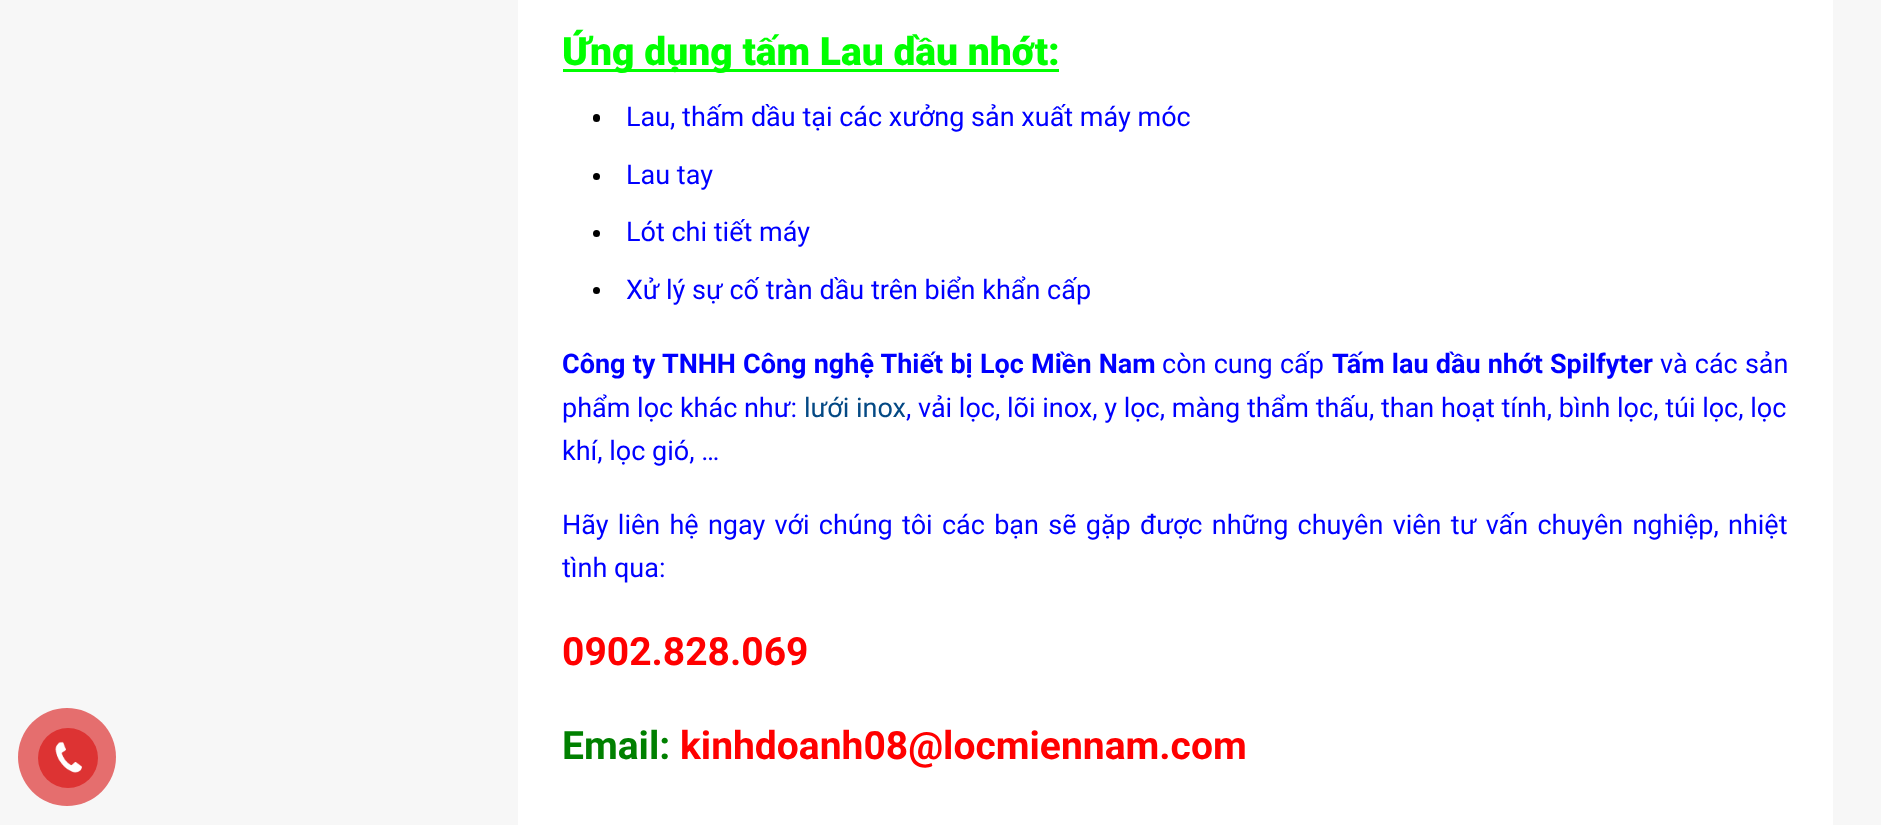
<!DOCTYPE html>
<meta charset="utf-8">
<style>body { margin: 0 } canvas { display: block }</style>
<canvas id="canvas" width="1881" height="825"></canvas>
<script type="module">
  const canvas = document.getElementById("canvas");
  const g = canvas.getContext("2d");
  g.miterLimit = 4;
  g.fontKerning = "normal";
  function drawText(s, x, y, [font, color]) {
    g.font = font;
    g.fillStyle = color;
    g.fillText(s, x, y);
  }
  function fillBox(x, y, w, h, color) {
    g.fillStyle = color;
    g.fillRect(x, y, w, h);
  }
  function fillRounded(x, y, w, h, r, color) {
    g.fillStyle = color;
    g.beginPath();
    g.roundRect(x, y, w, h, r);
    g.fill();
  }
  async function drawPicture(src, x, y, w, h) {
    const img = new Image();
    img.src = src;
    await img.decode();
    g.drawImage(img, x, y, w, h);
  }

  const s1 = ["900 39px Roboto", "#00FF00"];
  const s2 = ["27px Roboto", "#0000FF"];
  const s3 = ["bold 27px Roboto", "#0000FF"];
  const s4 = ["27px Roboto", "#044984"];
  const s5 = ["bold 39px Roboto", "#FF0000"];
  const s6 = ["bold 39px Roboto", "#008000"];

  fillBox(0, 0, 1881, 825, "#F7F7F7");
  g.fillStyle = "#E56E6E";
  g.beginPath();
  g.arc(67, 757, 49, 0, Math.PI * 2);
  g.fill();
  g.fillStyle = "#DD3333";
  g.beginPath();
  g.arc(68, 758, 30, 0, Math.PI * 2);
  g.fill();
  await drawPicture("pic1.png", 55, 741, 27, 32);
  fillBox(518, 0, 1315, 825, "#FFFFFF");
  fillBox(563, 69, 496, 3, "#00FF00");
  drawText("Ứng dụng tấm Lau dầu nhớt:", 562, 65, s1);
  fillRounded(593, 114, 7, 8, 3.5, "#000000");
  drawText("Lau, thấm dầu tại các xưởng sản xuất máy móc", 626, 126, s2);
  g.fillStyle = "#000000";
  g.beginPath();
  g.arc(596.5, 176.5, 3.5, 0, Math.PI * 2);
  g.fill();
  drawText("Lau tay", 626, 184, s2);
  g.fillStyle = "#000000";
  g.beginPath();
  g.arc(596.5, 233.5, 3.5, 0, Math.PI * 2);
  g.fill();
  drawText("Lót chi tiết máy", 626, 241, s2);
  g.fillStyle = "#000000";
  g.beginPath();
  g.arc(596.5, 290.5, 3.5, 0, Math.PI * 2);
  g.fill();
  drawText("Xử lý sự cố tràn dầu trên biển khẩn cấp", 626, 299, s2);
  g.wordSpacing = "0.5px";
  drawText("Công ty TNHH Công nghệ Thiết bị Lọc Miền Nam", 562, 373, s3);
  drawText("còn cung cấp", 1162, 373, s2);
  drawText("Tấm lau dầu nhớt Spilfyter", 1332, 373, s3);
  drawText("và các sản", 1660, 373, s2);
  g.wordSpacing = "0px";
  drawText("phẩm lọc khác như:", 562, 417, s2);
  drawText("lưới inox", 804, 417, s4);
  drawText(", vải lọc, lõi inox, y lọc, màng thẩm thấu, than hoạt tính, bình lọc, túi lọc, lọc", 906, 417, s2);
  drawText("khí, lọc gió, …", 562, 460, s2);
  g.wordSpacing = "2.6px";
  drawText("Hãy liên hệ ngay với chúng tôi các bạn sẽ gặp được những chuyên viên tư vấn chuyên nghiệp, nhiệt", 562, 534, s2);
  g.wordSpacing = "0px";
  drawText("tình qua:", 562, 577, s2);
  drawText("0902.828.069", 562, 665, s5);
  drawText("Email:", 562, 759, s6);
  drawText("kinhdoanh08@locmiennam.com", 680, 759, s5);
</script>
